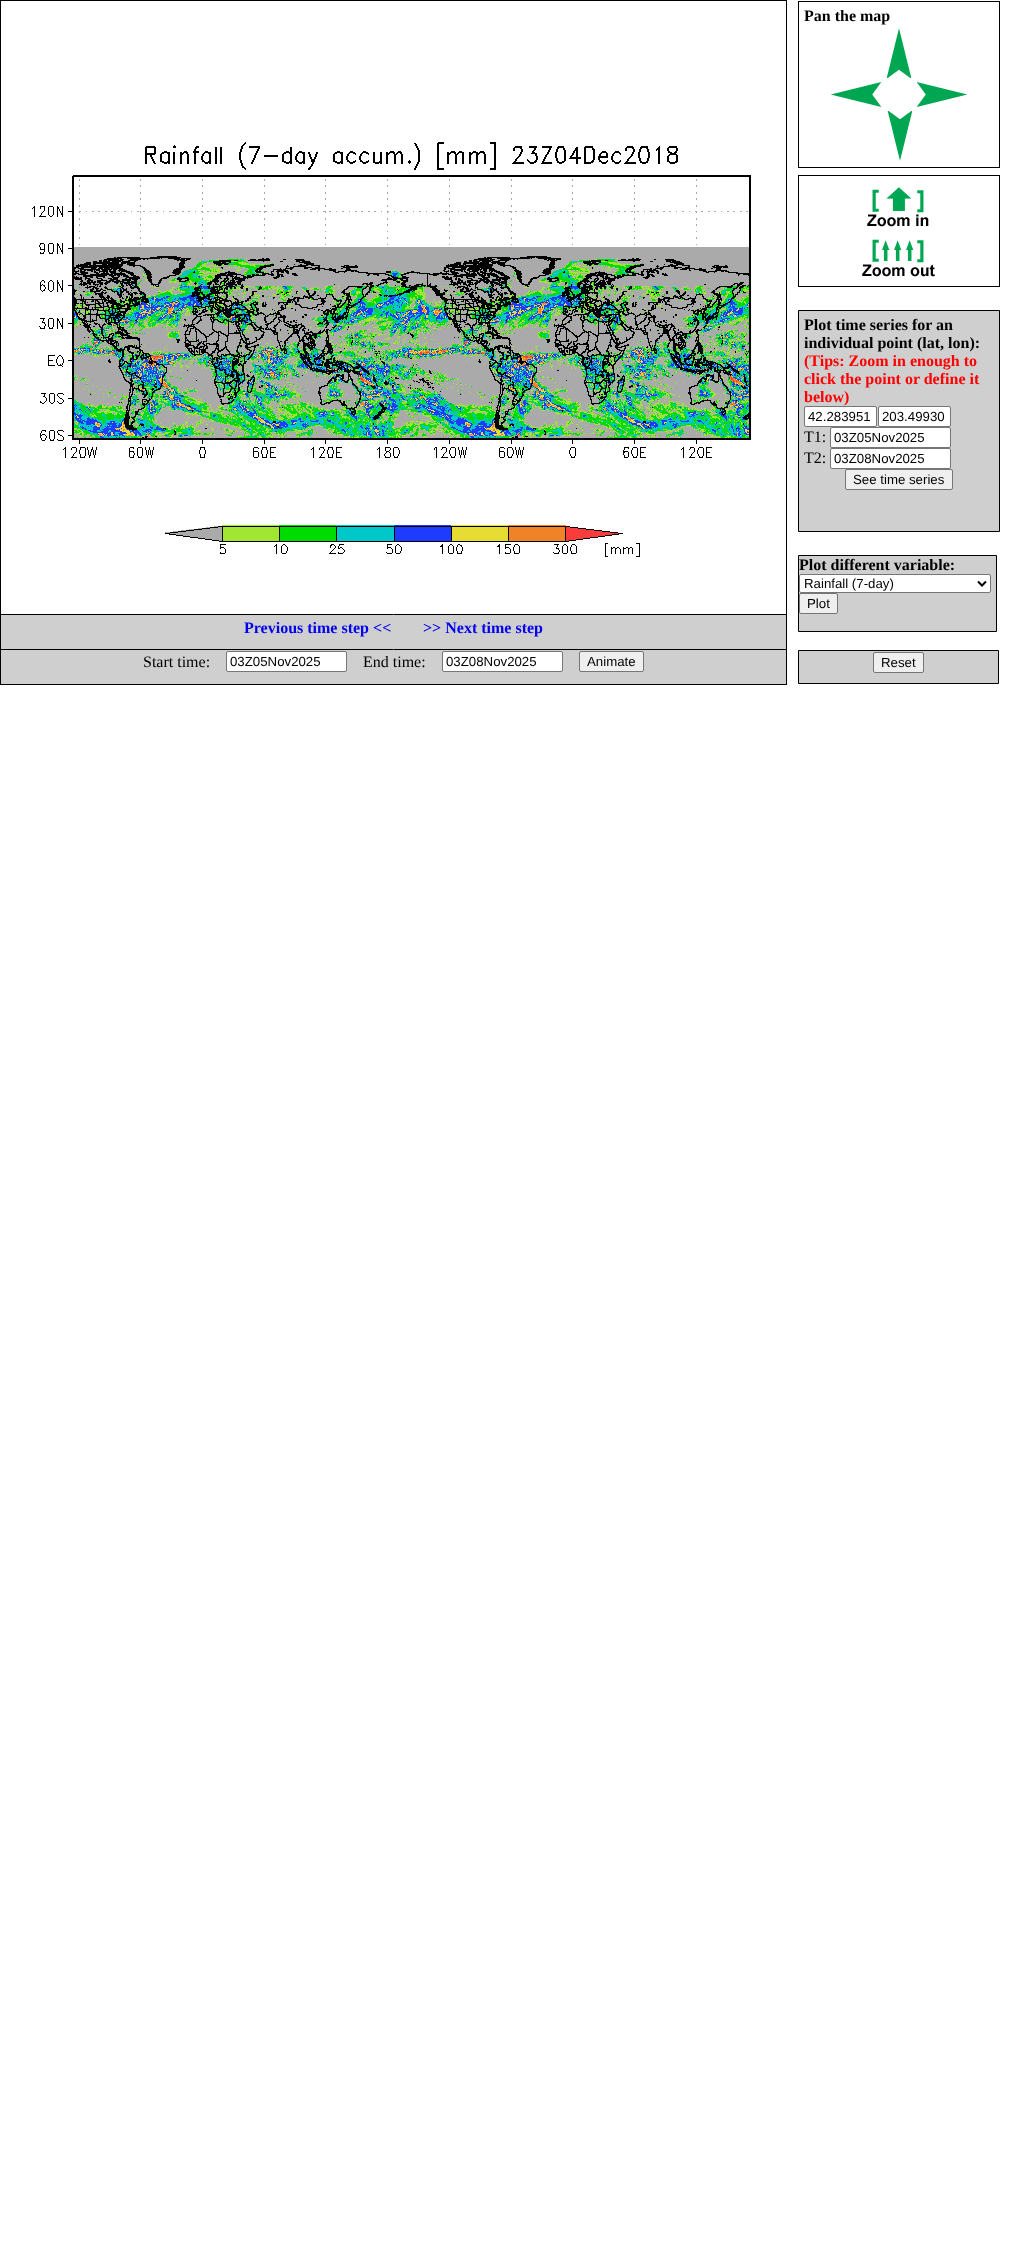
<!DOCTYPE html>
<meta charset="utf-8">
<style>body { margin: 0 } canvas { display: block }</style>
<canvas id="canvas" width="1035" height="2257"></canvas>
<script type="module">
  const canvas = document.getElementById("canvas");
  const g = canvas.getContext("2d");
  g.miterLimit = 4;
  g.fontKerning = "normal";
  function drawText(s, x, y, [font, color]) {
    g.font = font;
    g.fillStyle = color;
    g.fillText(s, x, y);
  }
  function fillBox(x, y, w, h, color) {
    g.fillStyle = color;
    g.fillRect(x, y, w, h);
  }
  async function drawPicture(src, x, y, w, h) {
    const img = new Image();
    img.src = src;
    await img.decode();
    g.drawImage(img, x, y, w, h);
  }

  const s1 = ["bold 16px Liberation Serif", "#000000"];
  const s2 = ["bold 16px Liberation Serif", "#FF0000"];
  const s3 = ["13.25px Liberation Sans", "#000000"];
  const s4 = ["16px Liberation Serif", "#000000"];
  const s5 = ["bold 16px Liberation Serif", "#0000EE"];

  fillBox(0, 0, 1035, 2257, "#FFFFFF");
  g.strokeStyle = "#000000";
  g.strokeRect(0.5, 0.5, 786, 684);
  await drawPicture("pic1.png", 32, 142, 719, 415);
  g.strokeRect(798.5, 1.5, 201, 166);
  drawText("Pan the map", 804, 21, s1);
  await drawPicture("pic2.png", 887, 28, 25, 50);
  await drawPicture("pic3.png", 831, 82, 50, 25);
  await drawPicture("pic4.png", 917, 82, 50, 25);
  await drawPicture("pic5.png", 887, 111, 25, 50);
  g.strokeRect(798.5, 175.5, 201, 111);
  await drawPicture("pic6.png", 867, 187, 62, 40);
  await drawPicture("pic7.png", 862, 239, 73, 38);
  g.fillStyle = "#CFCFCF";
  g.beginPath();
  g.rect(798.5, 310.5, 201, 221);
  g.fill();
  g.stroke();
  drawText("Plot time series for an", 804, 330, s1);
  drawText("individual point (lat, lon):", 804, 348, s1);
  drawText("(Tips: Zoom in enough to", 804, 366, s2);
  drawText("click the point or define it", 804, 384, s2);
  drawText("below)", 804, 402, s2);
  g.fillStyle = "#FFFFFF";
  g.beginPath();
  g.roundRect(804.5, 406.5, 72, 20, 1.5);
  g.fill();
  g.strokeStyle = "#767676";
  g.stroke();
  drawText("42.283951", 808, 421, s3);
  g.fillStyle = "#FFFFFF";
  g.beginPath();
  g.roundRect(878.5, 406.5, 72, 20, 1.5);
  g.fill();
  g.stroke();
  drawText("203.49930", 882, 421, s3);
  drawText("T1:", 804, 442, s4);
  g.fillStyle = "#FFFFFF";
  g.beginPath();
  g.roundRect(830.5, 427.5, 120, 20, 1.5);
  g.fill();
  g.stroke();
  drawText("03Z05Nov2025", 834, 442, s3);
  drawText("T2:", 804, 463, s4);
  g.fillStyle = "#FFFFFF";
  g.beginPath();
  g.roundRect(830.5, 448.5, 120, 20, 1.5);
  g.fill();
  g.stroke();
  drawText("03Z08Nov2025", 834, 463, s3);
  g.fillStyle = "#EFEFEF";
  g.beginPath();
  g.roundRect(845.5, 469.5, 107, 20, 1.5);
  g.fill();
  g.stroke();
  drawText("See time series", 853, 484, s3);
  g.fillStyle = "#CFCFCF";
  g.beginPath();
  g.rect(798.5, 555.5, 198, 76);
  g.fill();
  g.strokeStyle = "#000000";
  g.stroke();
  drawText("Plot different variable:", 799, 570, s1);
  g.fillStyle = "#FFFFFF";
  g.beginPath();
  g.roundRect(799.5, 574.5, 191, 18, 1.5);
  g.fill();
  g.strokeStyle = "#767676";
  g.stroke();
  g.beginPath();
  g.moveTo(978, 581.5);
  g.lineTo(982, 585.5);
  g.lineTo(986, 581.5);
  g.strokeStyle = "#000000";
  g.lineWidth = 2;
  g.stroke();
  drawText("Rainfall (7-day)", 804, 588, s3);
  g.fillStyle = "#EFEFEF";
  g.beginPath();
  g.roundRect(799.5, 593.5, 38, 20, 1.5);
  g.fill();
  g.strokeStyle = "#767676";
  g.lineWidth = 1;
  g.stroke();
  drawText("Plot", 807, 608, s3);
  g.fillStyle = "#CFCFCF";
  g.beginPath();
  g.rect(0.5, 614.5, 786, 35);
  g.fill();
  g.strokeStyle = "#000000";
  g.stroke();
  drawText("Previous time step <<", 244, 633, s5);
  drawText(">> Next time step", 423, 633, s5);
  fillBox(1, 650, 785, 34, "#CFCFCF");
  drawText("Start time:", 143, 667, s4);
  g.fillStyle = "#FFFFFF";
  g.beginPath();
  g.roundRect(226.5, 651.5, 120, 20, 1.5);
  g.fill();
  g.strokeStyle = "#767676";
  g.stroke();
  drawText("03Z05Nov2025", 230, 666, s3);
  drawText("End time:", 363, 667, s4);
  g.fillStyle = "#FFFFFF";
  g.beginPath();
  g.roundRect(442.5, 651.5, 120, 20, 1.5);
  g.fill();
  g.stroke();
  drawText("03Z08Nov2025", 446, 666, s3);
  g.fillStyle = "#EFEFEF";
  g.beginPath();
  g.roundRect(579.5, 651.5, 64, 20, 1.5);
  g.fill();
  g.stroke();
  drawText("Animate", 587, 666, s3);
  g.fillStyle = "#CFCFCF";
  g.beginPath();
  g.rect(798.5, 650.5, 200, 33);
  g.fill();
  g.strokeStyle = "#000000";
  g.stroke();
  g.fillStyle = "#EFEFEF";
  g.beginPath();
  g.roundRect(873.5, 652.5, 50, 20, 1.5);
  g.fill();
  g.strokeStyle = "#767676";
  g.stroke();
  drawText("Reset", 881, 667, s3);
</script>
